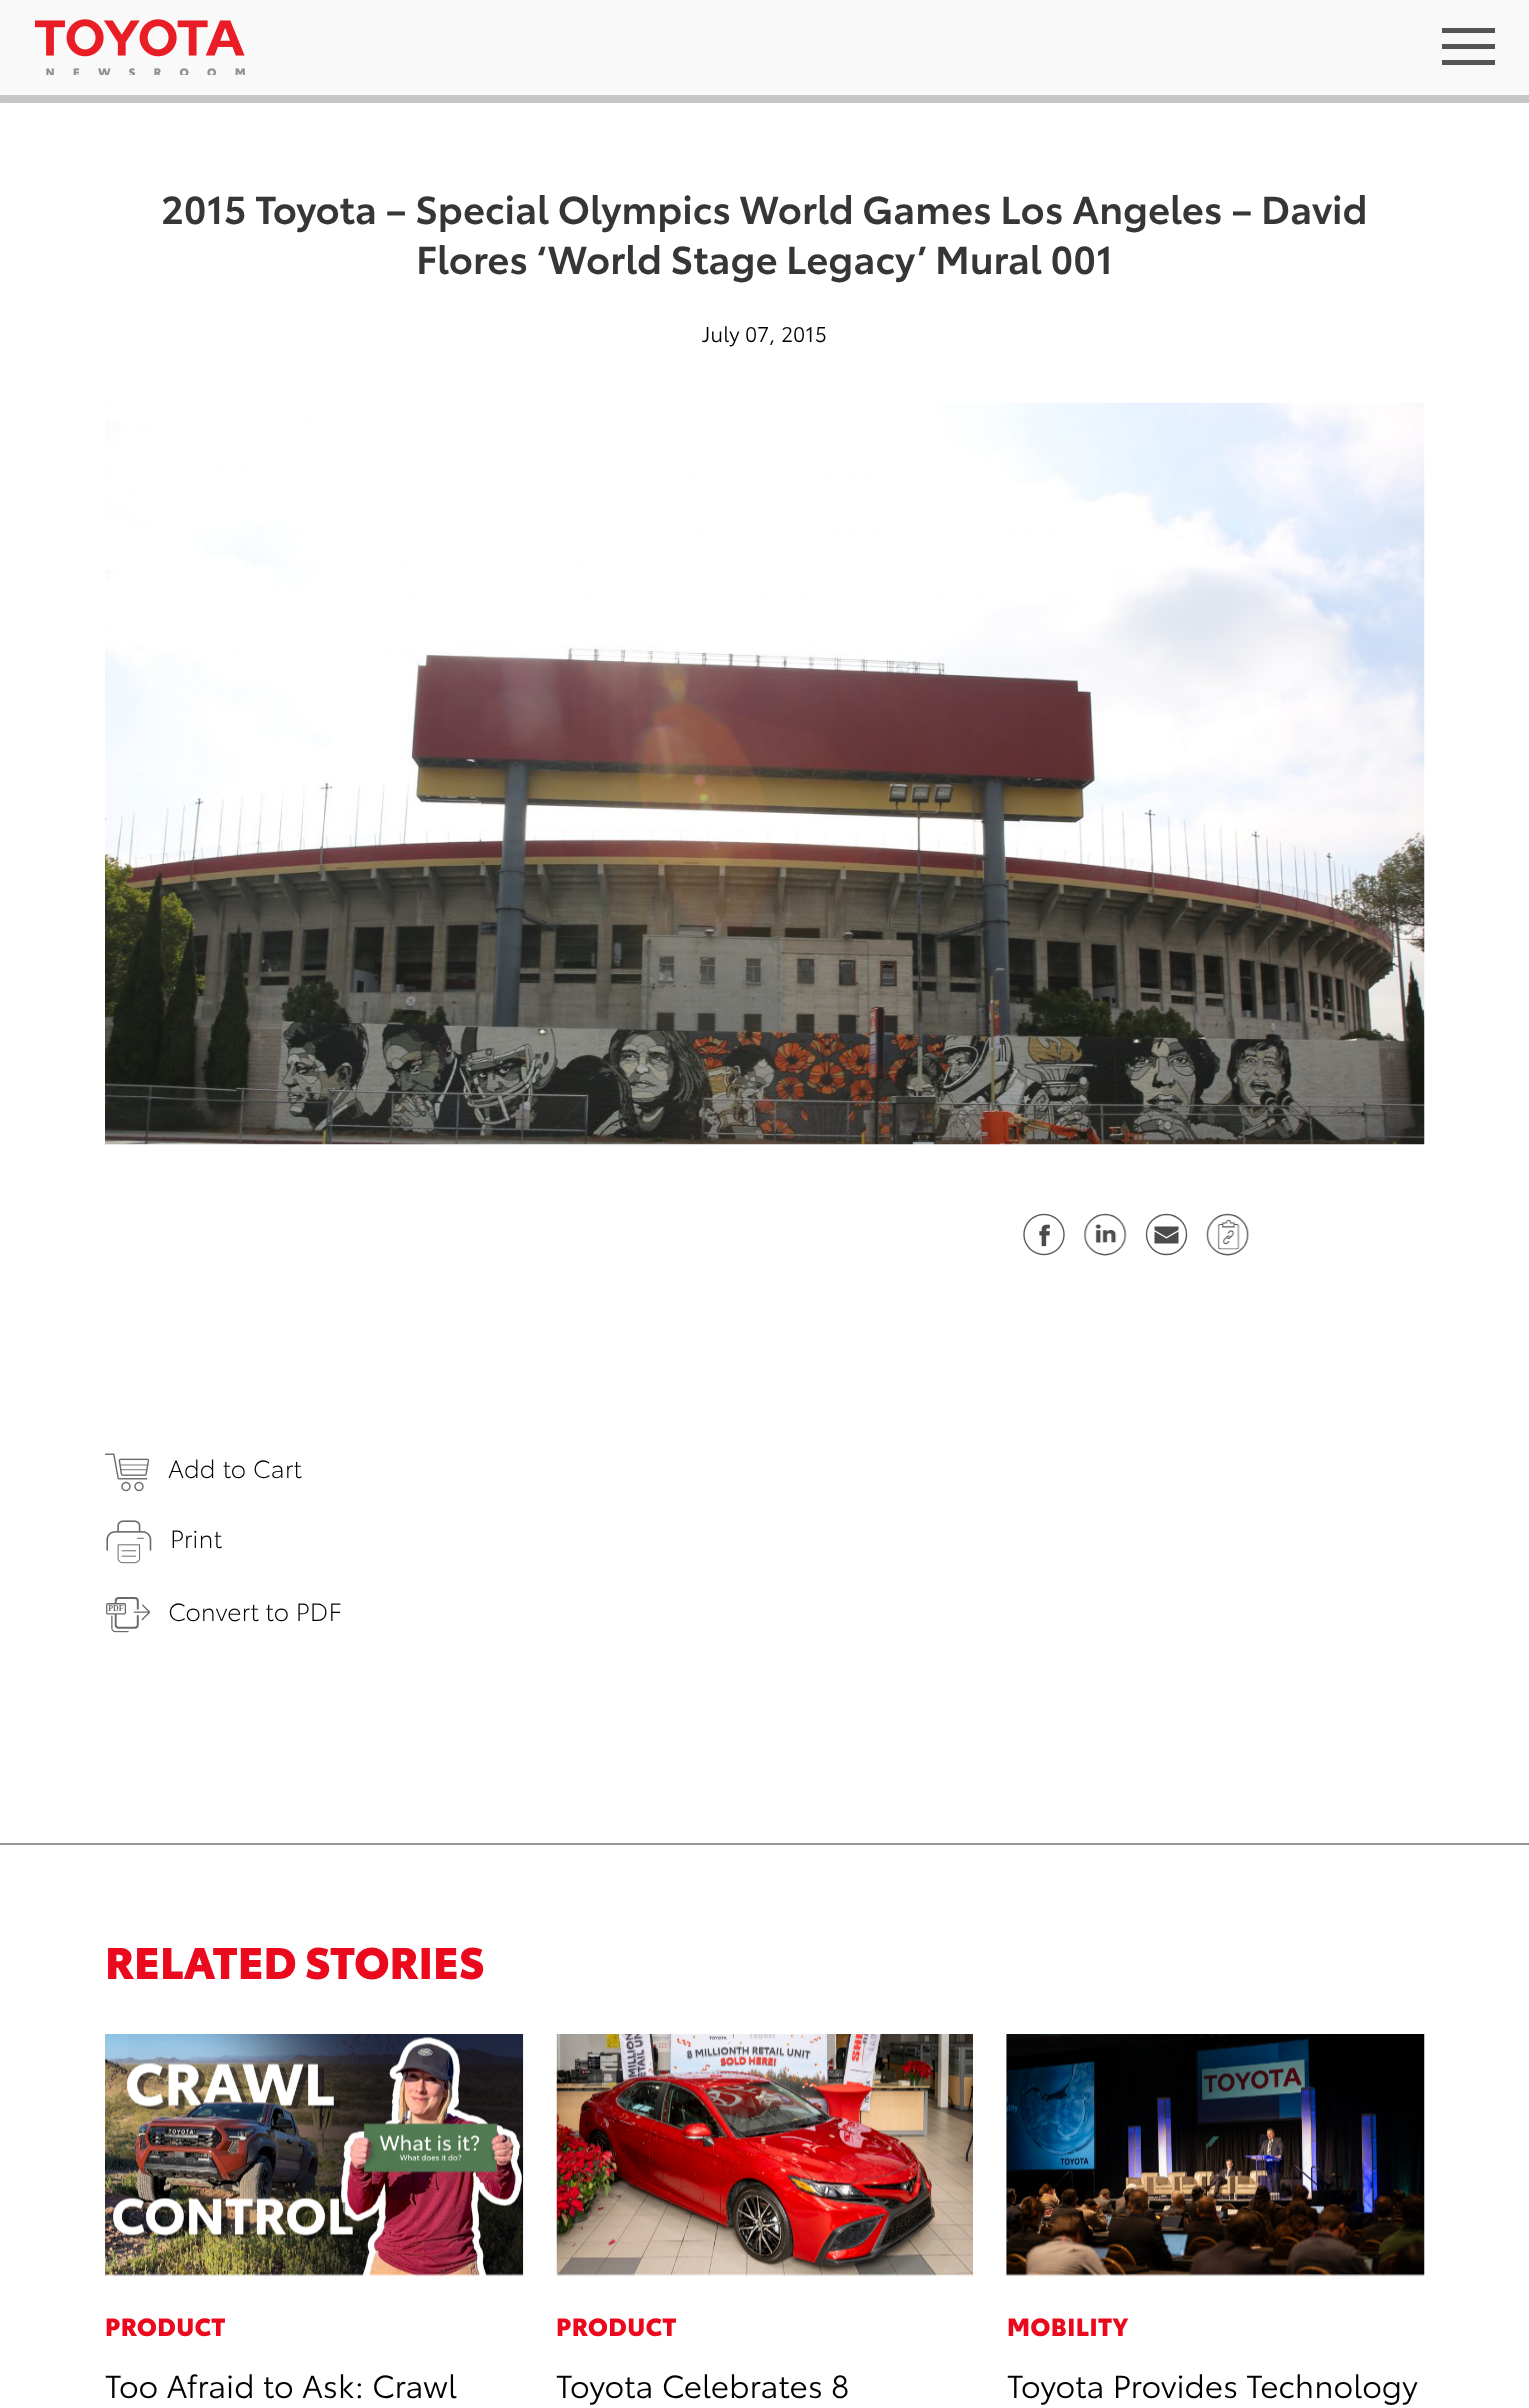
<!DOCTYPE html>
<meta charset="utf-8">
<style>body { margin: 0 } canvas { display: block }</style>
<canvas id="canvas" width="1529" height="2408"></canvas>
<script type="module">
  const canvas = document.getElementById("canvas");
  const g = canvas.getContext("2d");
  g.miterLimit = 4;
  g.fontKerning = "normal";
  function drawText(s, x, y, [font, color]) {
    g.font = font;
    g.fillStyle = color;
    g.fillText(s, x, y);
  }
  function fillBox(x, y, w, h, color) {
    g.fillStyle = color;
    g.fillRect(x, y, w, h);
  }
  async function drawPicture(src, x, y, w, h) {
    const img = new Image();
    img.src = src;
    await img.decode();
    g.drawImage(img, x, y, w, h);
  }

  const s1 = ["600 38.5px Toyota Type", "#363636"];
  const s2 = ["21px Toyota Type", "#000000"];
  const s3 = ["300 24.5px Toyota Type", "#000000"];
  const s4 = ["900 43.75px Toyota Type", "#EB0A1D"];
  const s5 = ["900 24.5px Toyota Type", "#EB0A1D"];
  const s6 = ["31.5px Toyota Type", "#000000"];

  fillBox(0, 0, 1529, 2408, "#FFFFFF");
  g.fillStyle = "rgba(210, 210, 210, 0.5)";
  g.filter = "blur(3.5px)";
  g.beginPath();
  g.rect(0, 4, 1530, 94);
  g.fill();
  g.filter = "none";
  fillBox(0, 0, 1529, 95, "#F9F9F9");
  await drawPicture("pic1.png", 35, 19, 210, 56);
  fillBox(1442, 28, 53, 5, "#545454");
  fillBox(1442, 44, 53, 5, "#545454");
  fillBox(1442, 60, 53, 5, "#545454");
  fillBox(0, 95, 1529, 8, "#C6C6C6");
  drawText("2015 Toyota – Special Olympics World Games Los Angeles – David", 161, 224, s1);
  drawText("Flores ‘World Stage Legacy’ Mural 001", 416, 274, s1);
  drawText("July 07, 2015", 702, 342, s2);
  await drawPicture("pic2.png", 105, 402, 1320, 743);
  await drawPicture("pic3.png", 1023, 1213, 42, 43);
  await drawPicture("pic4.png", 1084, 1213, 43, 43);
  g.fillStyle = "#4C4C4C";
  g.beginPath();
  g.moveTo(1166.5, 1237);
  g.lineTo(1154.5, 1230);
  g.lineTo(1154.5, 1226.5);
  g.lineTo(1178.5, 1226.5);
  g.lineTo(1178.5, 1230);
  g.closePath();
  g.moveTo(1166.5, 1238.5);
  g.lineTo(1178.5, 1231.5);
  g.lineTo(1178.5, 1243.5);
  g.lineTo(1154.5, 1243.5);
  g.lineTo(1154.5, 1231.5);
  g.closePath();
  g.fill("evenodd");
  g.beginPath();
  g.arc(1166.5, 1234.5, 20, 0, Math.PI * 2);
  g.strokeStyle = "#5B5B5B";
  g.lineWidth = 1.4;
  g.stroke();
  await drawPicture("pic5.png", 1206, 1213, 44, 43);
  await drawPicture("pic6.png", 105, 1453, 45, 39);
  drawText("Add to Cart", 168, 1478, s3);
  await drawPicture("pic7.png", 106, 1520, 46, 44);
  drawText("Print", 170, 1548, s3);
  await drawPicture("pic8.png", 106, 1597, 45, 36);
  drawText("Convert to PDF", 168, 1621, s3);
  fillBox(0, 1843, 1529, 2, "#979797");
  drawText("RELATED STORIES", 105, 1979, s4);
  await drawPicture("pic9.png", 105, 2034, 419, 242);
  g.letterSpacing = "0.5px";
  drawText("PRODUCT", 105, 2336, s5);
  g.letterSpacing = "0px";
  drawText("Too Afraid to Ask: Crawl", 105, 2398, s6);
  await drawPicture("pic10.png", 556, 2034, 417, 242);
  g.letterSpacing = "0.5px";
  drawText("PRODUCT", 556, 2336, s5);
  g.letterSpacing = "0px";
  drawText("Toyota Celebrates 8", 556, 2398, s6);
  await drawPicture("pic11.png", 1006, 2034, 419, 242);
  g.letterSpacing = "0.5px";
  drawText("MOBILITY", 1007, 2336, s5);
  g.letterSpacing = "0px";
  drawText("Toyota Provides Technology", 1007, 2398, s6);
</script>
